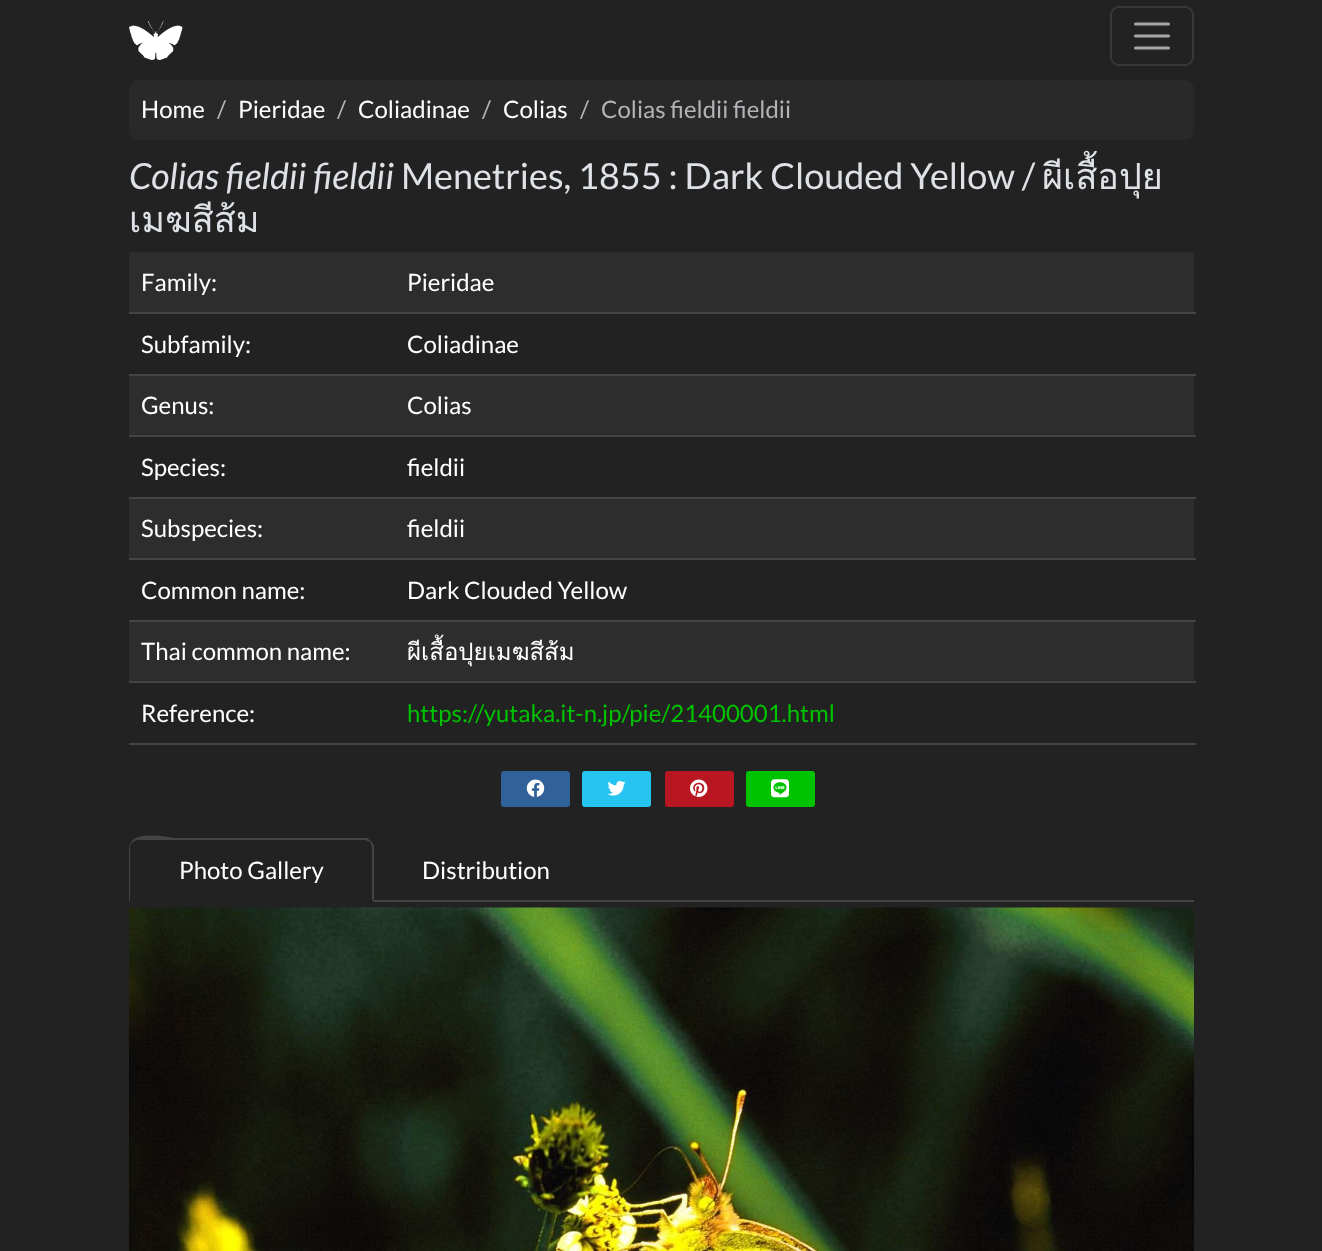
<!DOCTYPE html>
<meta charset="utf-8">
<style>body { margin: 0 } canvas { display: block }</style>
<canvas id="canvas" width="1322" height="1251"></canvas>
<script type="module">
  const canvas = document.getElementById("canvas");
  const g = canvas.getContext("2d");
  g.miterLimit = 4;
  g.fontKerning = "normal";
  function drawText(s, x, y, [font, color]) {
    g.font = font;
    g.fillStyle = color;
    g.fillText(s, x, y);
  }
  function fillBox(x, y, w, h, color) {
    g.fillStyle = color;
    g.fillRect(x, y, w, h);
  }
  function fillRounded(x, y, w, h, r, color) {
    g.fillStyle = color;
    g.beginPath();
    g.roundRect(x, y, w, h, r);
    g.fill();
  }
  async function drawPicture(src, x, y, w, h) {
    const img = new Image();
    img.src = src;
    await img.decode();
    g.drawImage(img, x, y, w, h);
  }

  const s1 = ["24px Lato", "#FFFFFF"];
  const s2 = ["24px Lato", "#B1B4B7"];
  const s3 = ["italic 36px Lato", "#DEE2E6"];
  const s4 = ["36px Lato", "#DEE2E6"];
  const s5 = ["36px Loma", "#DEE2E6"];
  const s6 = ["24px Loma", "#FFFFFF"];
  const s7 = ["24px Lato", "#00C300"];

  fillBox(0, 0, 1322, 1251, "#222222");
  await drawPicture("pic1.png", 129, 21, 54, 39);
  g.beginPath();
  g.roundRect(1111, 7, 82, 58, 8);
  g.strokeStyle = "#383838";
  g.lineWidth = 2;
  g.stroke();
  g.beginPath();
  g.moveTo(1135.5, 24);
  g.lineTo(1168.5, 24);
  g.moveTo(1135.5, 36);
  g.lineTo(1168.5, 36);
  g.moveTo(1135.5, 48);
  g.lineTo(1168.5, 48);
  g.strokeStyle = "#A7A7A7";
  g.lineWidth = 3;
  g.lineCap = "round";
  g.stroke();
  fillRounded(129, 80, 1065, 60, 9, "#292929");
  drawText("Home", 141, 118, s1);
  drawText("/", 217, 118, s2);
  drawText("Pieridae", 238, 118, s1);
  drawText("/", 337, 118, s2);
  drawText("Coliadinae", 358, 118, s1);
  drawText("/", 482, 118, s2);
  drawText("Colias", 503, 118, s1);
  drawText("/", 580, 118, s2);
  drawText("Colias fieldii fieldii", 601, 118, s2);
  drawText("Colias fieldii fieldii", 129, 189, s3);
  drawText("Menetries, 1855 : Dark Clouded Yellow /", 401, 189, s4);
  drawText("ผีเสื้อปุย", 1042, 189, s5);
  drawText("เมฆสีส้ม", 129, 232, s5);
  fillBox(129, 252, 1065, 60, "#2D2D2D");
  drawText("Family:", 141, 291, s1);
  fillBox(129, 312, 1067, 2, "#444444");
  drawText("Pieridae", 407, 291, s1);
  drawText("Subfamily:", 141, 353, s1);
  fillBox(129, 374, 1067, 2, "#444444");
  drawText("Coliadinae", 407, 353, s1);
  fillBox(129, 376, 1065, 59, "#2D2D2D");
  drawText("Genus:", 141, 414, s1);
  fillBox(129, 435, 1067, 2, "#444444");
  drawText("Colias", 407, 414, s1);
  drawText("Species:", 141, 476, s1);
  fillBox(129, 497, 1067, 2, "#444444");
  drawText("fieldii", 407, 476, s1);
  fillBox(129, 499, 1065, 59, "#2D2D2D");
  drawText("Subspecies:", 141, 537, s1);
  fillBox(129, 558, 1067, 2, "#444444");
  drawText("fieldii", 407, 537, s1);
  drawText("Common name:", 141, 599, s1);
  fillBox(129, 620, 1067, 2, "#444444");
  drawText("Dark Clouded Yellow", 407, 599, s1);
  fillBox(129, 622, 1065, 59, "#2D2D2D");
  drawText("Thai common name:", 141, 660, s1);
  fillBox(129, 681, 1067, 2, "#444444");
  drawText("ผีเสื้อปุยเมฆสีส้ม", 407, 660, s6);
  drawText("Reference:", 141, 722, s1);
  fillBox(129, 743, 1067, 2, "#444444");
  drawText("https://yutaka.it-n.jp/pie/21400001.html", 407, 722, s7);
  fillRounded(501, 771, 69, 36, 3, "#306199");
  await drawPicture("pic2.png", 526, 779, 19, 18);
  fillRounded(582, 771, 69, 36, 3, "#26C4F1");
  await drawPicture("pic3.png", 607, 781, 19, 15);
  fillRounded(665, 771, 69, 36, 3, "#B81621");
  await drawPicture("pic4.png", 690, 779, 18, 18);
  fillRounded(746, 771, 69, 36, 3, "#00C300");
  await drawPicture("pic5.png", 771, 779, 18, 19);
  fillBox(374, 900, 820, 2, "#444444");
  g.beginPath();
  g.moveTo(138, 840);
  g.bezierCurveTo(136, 840, 134, 841, 133, 842);
  g.lineTo(132, 841);
  g.bezierCurveTo(140, 831, 173, 838, 174, 838);
  g.lineTo(367, 838);
  g.lineTo(371, 841);
  g.lineTo(370, 842);
  g.bezierCurveTo(368, 841, 366, 840, 364, 840);
  g.closePath();
  g.fill();
  g.beginPath();
  g.moveTo(371, 841);
  g.lineTo(374, 845);
  g.lineTo(374, 902);
  g.lineTo(372, 900);
  g.lineTo(372, 848);
  g.bezierCurveTo(372, 846, 371, 844, 370, 842);
  g.closePath();
  g.fill();
  g.beginPath();
  g.moveTo(129, 902);
  g.lineTo(130, 900);
  g.lineTo(130, 848);
  g.bezierCurveTo(130, 845, 131, 843, 133, 842);
  g.lineTo(132, 841);
  g.bezierCurveTo(130, 843, 129, 846, 129, 848);
  g.closePath();
  g.fill();
  drawText("Photo Gallery", 179, 879, s1);
  drawText("Distribution", 422, 879, s1);
  await drawPicture("pic6.png", 129, 907, 1065, 344);
</script>
